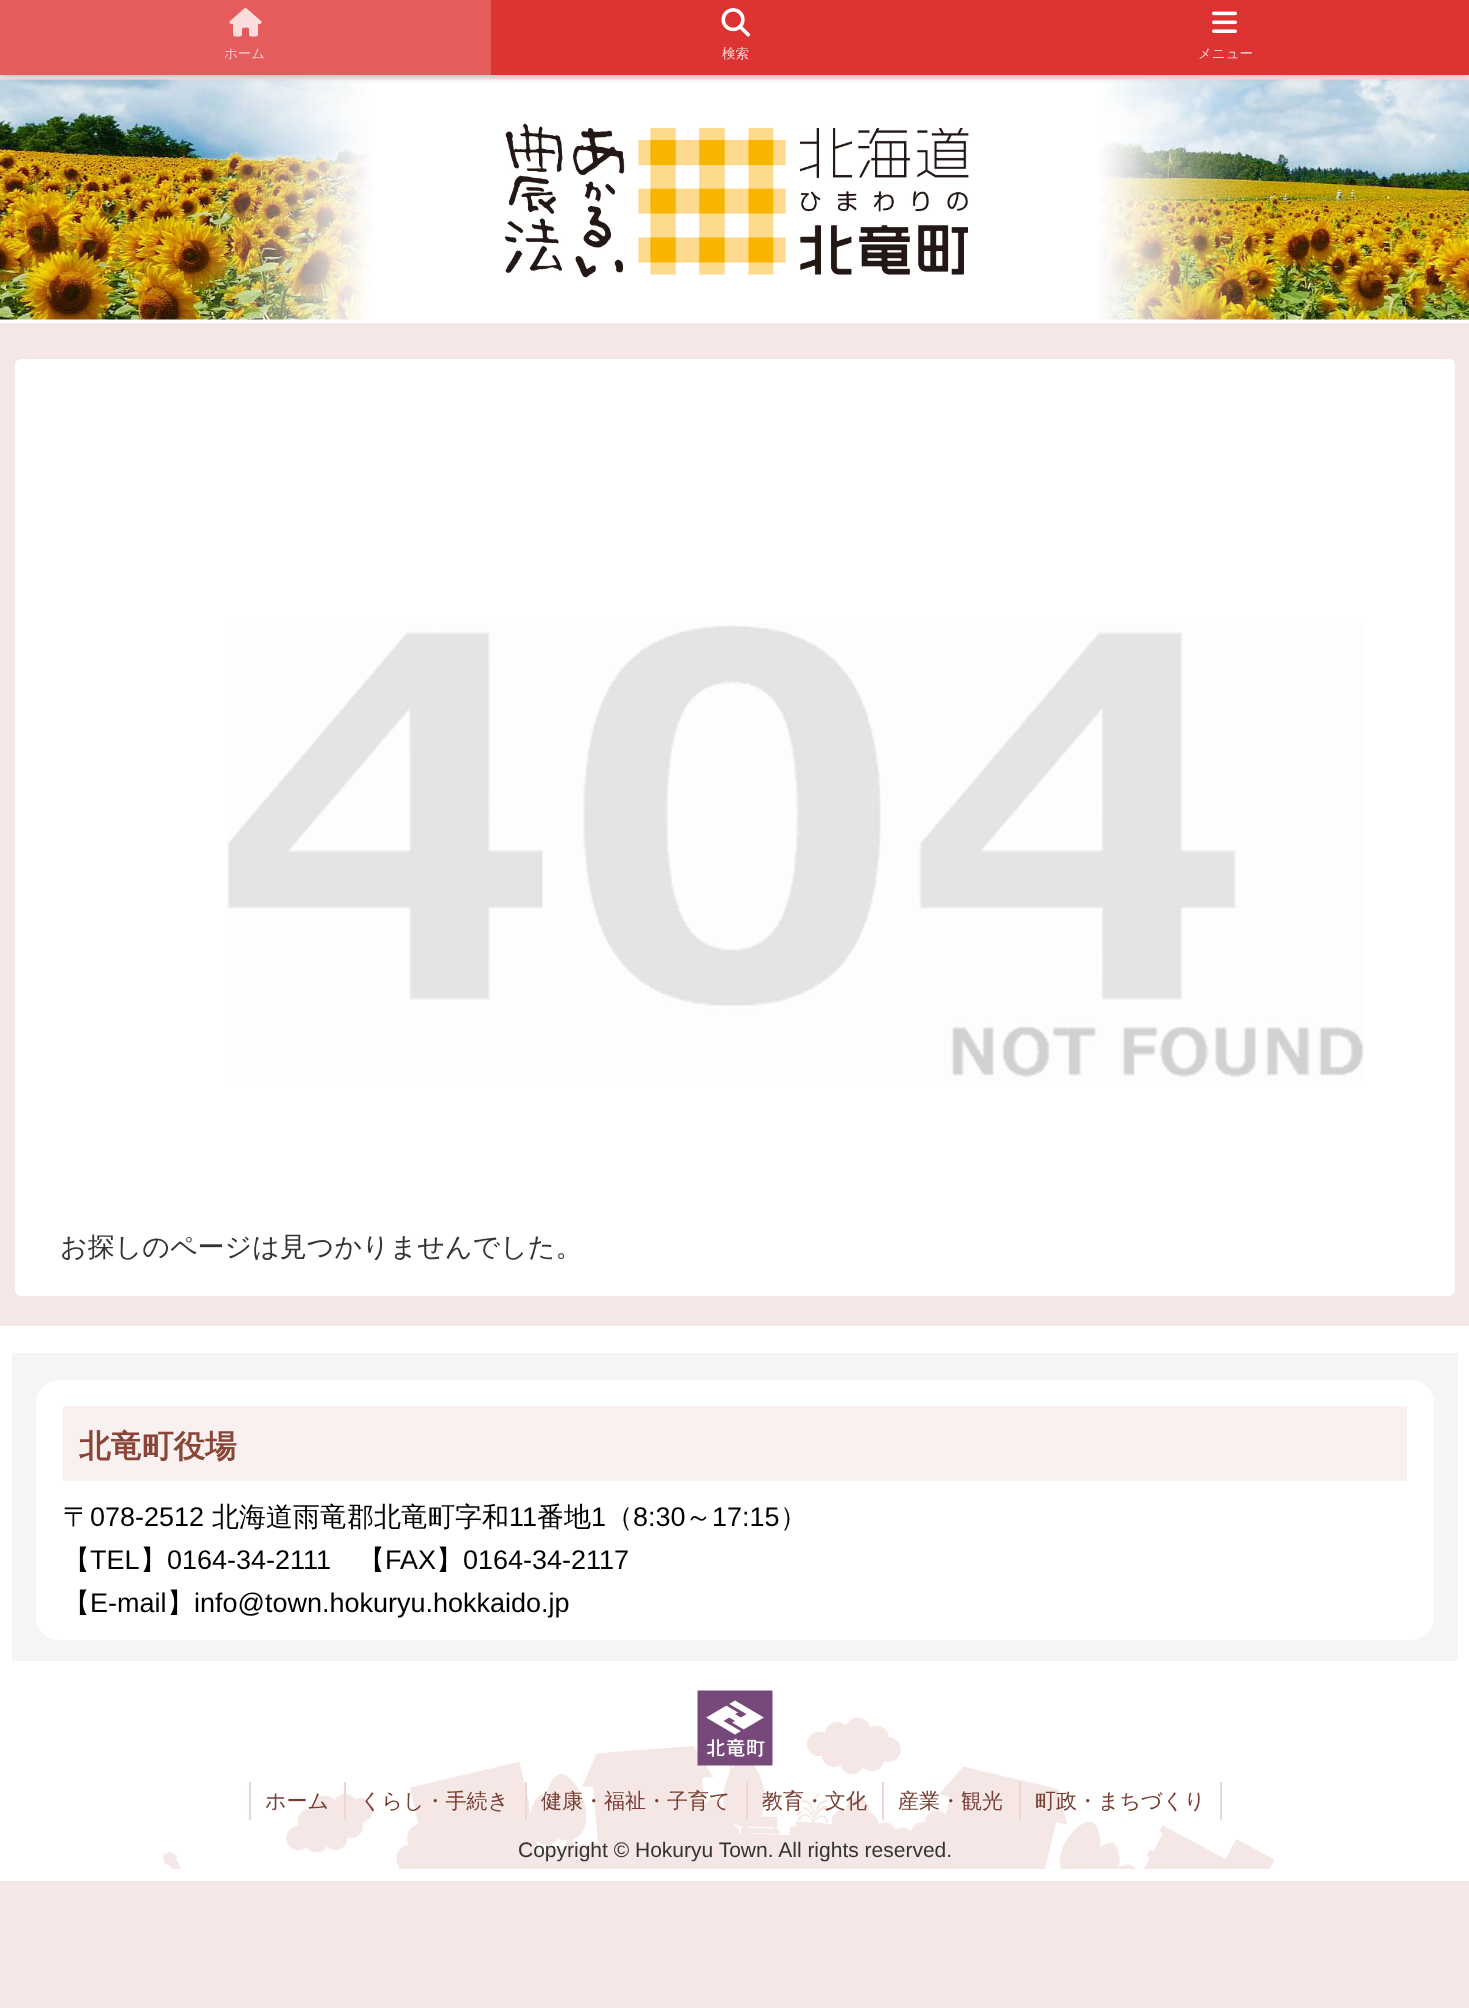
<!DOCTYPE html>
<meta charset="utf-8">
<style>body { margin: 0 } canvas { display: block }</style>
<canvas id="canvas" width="1469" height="2008"></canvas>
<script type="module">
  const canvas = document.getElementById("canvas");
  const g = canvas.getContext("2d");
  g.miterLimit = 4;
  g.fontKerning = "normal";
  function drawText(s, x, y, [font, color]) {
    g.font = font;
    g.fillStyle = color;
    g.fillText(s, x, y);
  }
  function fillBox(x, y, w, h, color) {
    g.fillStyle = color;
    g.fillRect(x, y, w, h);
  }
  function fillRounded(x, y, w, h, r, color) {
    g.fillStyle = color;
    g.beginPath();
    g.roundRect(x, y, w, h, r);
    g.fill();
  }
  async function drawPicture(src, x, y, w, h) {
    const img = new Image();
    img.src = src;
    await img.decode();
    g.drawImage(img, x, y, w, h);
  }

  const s1 = ["500 13.5px WenQuanYi Zen Hei", "#F5C4C4"];
  const s2 = ["500 13.5px WenQuanYi Zen Hei", "#F8D6D6"];
  const s3 = ["500 27px WenQuanYi Zen Hei", "#333333"];
  const s4 = ["bold 31.5px WenQuanYi Zen Hei", "#894537"];
  const s5 = ["500 27px WenQuanYi Zen Hei", "#000000"];
  const s6 = ["27px Liberation Sans", "#000000"];
  const s7 = ["500 21px WenQuanYi Zen Hei", "#773C30"];
  const s8 = ["21px Liberation Sans", "#333333"];

  fillBox(0, 0, 1469, 2008, "#F4E7E5");
  fillBox(0, 319, 1469, 4, "#FFFFFF");
  await drawPicture("pic4.png", 0, 79, 1469, 241);
  g.fillStyle = "#A9A9A9";
  g.filter = "blur(4px)";
  g.beginPath();
  g.rect(0, 0, 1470, 75);
  g.fill();
  g.filter = "none";
  fillBox(491, 0, 978, 75, "#DD3333");
  fillBox(0, 0, 491, 75, "#E45C5C");
  await drawPicture("pic1.png", 229, 8, 33, 29);
  drawText("ホーム", 224, 58, s1);
  await drawPicture("pic2.png", 721, 8, 29, 29);
  drawText("検索", 722, 58, s2);
  await drawPicture("pic3.png", 1212, 11, 25, 22);
  drawText("メニュー", 1198, 58, s2);
  await drawPicture("pic5.png", 504, 123, 465, 155);
  fillRounded(15, 359, 1440, 937, 6, "#FFFFFF");
  await drawPicture("pic6.png", 226, 623, 1138, 458);
  drawText("お探しのページは見つかりませんでした。", 60, 1256, s3);
  fillBox(0, 1326, 1469, 555, "#FFFFFF");
  fillBox(12, 1353, 1446, 308, "#F5F5F5");
  fillRounded(36, 1380, 1398, 260, 23, "#FFFFFF");
  fillBox(63, 1406, 1344, 75, "#F9F1F0");
  drawText("北竜町役場", 79, 1457, s4);
  drawText("〒", 63, 1526, s5);
  drawText("078-2512", 90, 1526, s6);
  drawText("北海道雨竜郡北竜町字和", 212, 1526, s5);
  drawText("11", 509, 1526, s6);
  drawText("番地", 537, 1526, s5);
  drawText("1", 591, 1526, s6);
  drawText("（", 606, 1526, s5);
  drawText("8:30", 633, 1526, s6);
  drawText("～", 685, 1526, s5);
  drawText("17:15", 712, 1526, s6);
  drawText("）", 780, 1526, s5);
  drawText("【", 63, 1569, s5);
  drawText("TEL", 90, 1569, s6);
  drawText("】", 140, 1569, s5);
  drawText("0164-34-2111", 167, 1569, s6);
  drawText("【", 358, 1569, s5);
  drawText("FAX", 385, 1569, s6);
  drawText("】", 436, 1569, s5);
  drawText("0164-34-2117", 463, 1569, s6);
  drawText("【", 63, 1612, s5);
  drawText("E-mail", 90, 1612, s6);
  drawText("】", 167, 1612, s5);
  drawText("info@town.hokuryu.hokkaido.jp", 194, 1612, s6);
  await drawPicture("pic7.png", 163, 1717, 1112, 152);
  await drawPicture("pic8.png", 697, 1690, 76, 76);
  fillBox(249, 1782, 2, 38, "#EDD7D2");
  drawText("ホーム", 265, 1808, s7);
  fillBox(344, 1782, 2, 38, "#EDD7D2");
  drawText("くらし・手続き", 360, 1808, s7);
  fillBox(525, 1782, 2, 38, "#EDD7D2");
  drawText("健康・福祉・子育て", 541, 1808, s7);
  fillBox(746, 1782, 2, 38, "#EDD7D2");
  drawText("教育・文化", 762, 1808, s7);
  fillBox(882, 1782, 2, 38, "#EDD7D2");
  drawText("産業・観光", 898, 1808, s7);
  fillBox(1220, 1782, 2, 38, "#DDDDDD");
  fillBox(1019, 1782, 2, 38, "#EDD7D2");
  drawText("町政・まちづくり", 1035, 1808, s7);
  drawText("Copyright © Hokuryu Town. All rights reserved.", 518, 1857, s8);
</script>
